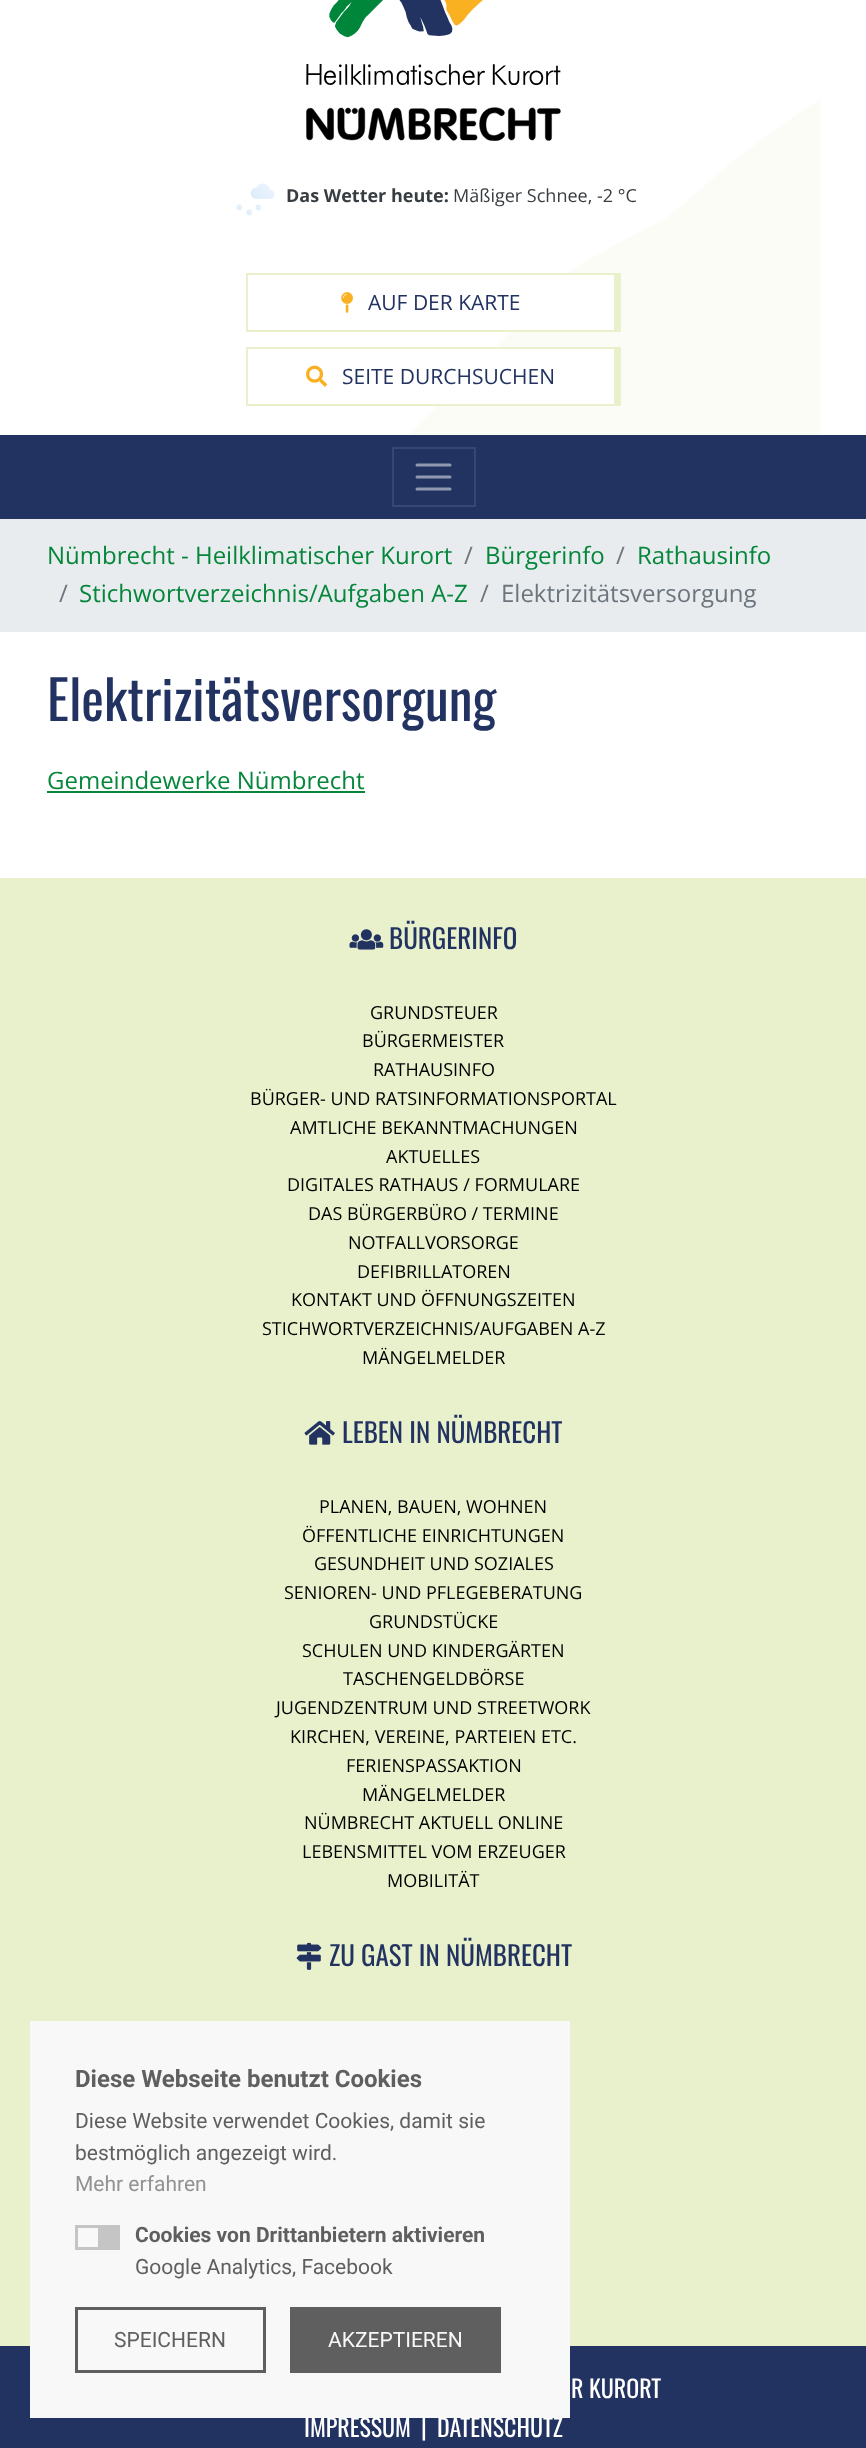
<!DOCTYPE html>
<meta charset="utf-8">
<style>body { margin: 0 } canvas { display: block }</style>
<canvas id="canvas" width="866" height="2448"></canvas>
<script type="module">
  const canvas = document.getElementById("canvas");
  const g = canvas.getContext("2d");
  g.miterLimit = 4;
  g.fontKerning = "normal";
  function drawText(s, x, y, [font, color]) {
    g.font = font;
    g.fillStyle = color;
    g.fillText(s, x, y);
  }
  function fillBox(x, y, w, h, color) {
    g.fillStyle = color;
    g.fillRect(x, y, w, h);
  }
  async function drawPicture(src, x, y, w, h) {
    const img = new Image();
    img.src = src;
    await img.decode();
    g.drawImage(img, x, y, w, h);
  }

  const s1 = ["bold 18px Open Sans", "#383D41"];
  const s2 = ["18px Open Sans", "#383D41"];
  const s3 = ["21px Open Sans", "#223361"];
  const s4 = ["24px Open Sans", "#05863B"];
  const s5 = ["24px Open Sans", "#6C757D"];
  const s6 = ["54px Oswald", "#223361"];
  const s7 = ["27px Oswald", "#223361"];
  const s8 = ["18px Open Sans", "#000000"];
  const s9 = ["24px Oswald", "#FFFFFF"];
  const s10 = ["bold 24px Roboto", "#5F5F5F"];
  const s11 = ["21px Roboto", "#5F5F5F"];
  const s12 = ["21px Roboto", "#929292"];
  const s13 = ["bold 21px Roboto", "#5F5F5F"];
  const s14 = ["21px Roboto", "#F8F8F8"];

  fillBox(0, 0, 866, 2448, "#FFFFFF");
  await drawPicture("pic1.png", 409, 100, 412, 335);
  await drawPicture("pic2.png", 306, 0, 255, 141);
  await drawPicture("pic3.png", 236, 183, 39, 33);
  drawText("Das Wetter heute:", 286, 202, s1);
  drawText("Mäßiger Schnee, -2 °C", 453, 202, s2);
  fillBox(513, 275, 101, 55, "#FFFFFF");
  fillBox(246, 273, 375, 2, "#E9F1CC");
  fillBox(614, 273, 7, 59, "#E9F1CC");
  fillBox(246, 330, 375, 2, "#E9F1CC");
  fillBox(246, 273, 2, 59, "#E9F1CC");
  await drawPicture("pic4.png", 341, 292, 12, 22);
  drawText("AUF DER KARTE", 368, 310, s3);
  fillBox(439, 349, 175, 55, "#FFFFFF");
  fillBox(246, 347, 375, 2, "#E9F1CC");
  fillBox(614, 347, 7, 58, "#E9F1CC");
  fillBox(246, 404, 375, 2, "#E9F1CC");
  fillBox(246, 347, 2, 58, "#E9F1CC");
  await drawPicture("pic5.png", 306, 365, 21, 22);
  drawText("SEITE DURCHSUCHEN", 342, 384, s3);
  fillBox(0, 435, 866, 84, "#223361");
  g.strokeStyle = "#384771";
  g.lineWidth = 2;
  g.strokeRect(393, 448, 82, 58);
  g.beginPath();
  g.moveTo(417, 465);
  g.lineTo(450, 465);
  g.moveTo(417, 477);
  g.lineTo(450, 477);
  g.moveTo(417, 489);
  g.lineTo(450, 489);
  g.strokeStyle = "#9199B0";
  g.lineWidth = 3;
  g.lineCap = "round";
  g.stroke();
  fillBox(0, 519, 866, 113, "#E9ECEF");
  drawText("Nümbrecht - Heilklimatischer Kurort", 47, 564, s4);
  drawText("/", 464, 564, s5);
  drawText("Bürgerinfo", 485, 564, s4);
  drawText("/", 616, 564, s5);
  drawText("Rathausinfo", 637, 564, s4);
  drawText("/", 59, 602, s5);
  drawText("Stichwortverzeichnis/Aufgaben A-Z", 79, 602, s4);
  drawText("/", 480, 602, s5);
  drawText("Elektrizitätsversorgung", 501, 602, s5);
  drawText("Elektrizitätsversorgung", 47, 721, s6);
  drawText("Gemeindewerke Nümbrecht", 47, 789, s4);
  fillBox(47, 791, 318, 2, "#05863B");
  fillBox(0, 878, 866, 1468, "#E9F1CC");
  await drawPicture("pic6.png", 349, 929, 35, 21);
  drawText("BÜRGERINFO", 389, 949, s7);
  drawText("GRUNDSTEUER", 370, 1019, s8);
  drawText("BÜRGERMEISTER", 362, 1047, s8);
  drawText("RATHAUSINFO", 373, 1076, s8);
  drawText("BÜRGER- UND RATSINFORMATIONSPORTAL", 250, 1105, s8);
  drawText("AMTLICHE BEKANNTMACHUNGEN", 290, 1134, s8);
  drawText("AKTUELLES", 386, 1163, s8);
  drawText("DIGITALES RATHAUS / FORMULARE", 287, 1191, s8);
  drawText("DAS BÜRGERBÜRO / TERMINE", 308, 1220, s8);
  drawText("NOTFALLVORSORGE", 348, 1249, s8);
  drawText("DEFIBRILLATOREN", 357, 1278, s8);
  drawText("KONTAKT UND ÖFFNUNGSZEITEN", 291, 1306, s8);
  drawText("STICHWORTVERZEICHNIS/AUFGABEN A-Z", 262, 1335, s8);
  drawText("MÄNGELMELDER", 362, 1364, s8);
  await drawPicture("pic7.png", 304, 1421, 31, 24);
  drawText("LEBEN IN NÜMBRECHT", 342, 1443, s7);
  drawText("PLANEN, BAUEN, WOHNEN", 319, 1513, s8);
  drawText("ÖFFENTLICHE EINRICHTUNGEN", 302, 1542, s8);
  drawText("GESUNDHEIT UND SOZIALES", 314, 1570, s8);
  drawText("SENIOREN- UND PFLEGEBERATUNG", 284, 1599, s8);
  drawText("GRUNDSTÜCKE", 369, 1628, s8);
  drawText("SCHULEN UND KINDERGÄRTEN", 302, 1657, s8);
  drawText("TASCHENGELDBÖRSE", 343, 1685, s8);
  drawText("JUGENDZENTRUM UND STREETWORK", 276, 1714, s8);
  drawText("KIRCHEN, VEREINE, PARTEIEN ETC.", 290, 1743, s8);
  drawText("FERIENSPASSAKTION", 346, 1772, s8);
  drawText("MÄNGELMELDER", 362, 1801, s8);
  drawText("NÜMBRECHT AKTUELL ONLINE", 304, 1829, s8);
  drawText("LEBENSMITTEL VOM ERZEUGER", 302, 1858, s8);
  drawText("MOBILITÄT", 387, 1887, s8);
  await drawPicture("pic8.png", 296, 1942, 26, 28);
  drawText("ZU GAST IN NÜMBRECHT", 329, 1966, s7);
  fillBox(0, 2346, 866, 102, "#223361");
  drawText("R KURORT", 571, 2398, s9);
  drawText("IMPRESSUM", 304, 2437, s9);
  drawText("|", 421, 2437, s9);
  drawText("DATENSCHUTZ", 437, 2437, s9);
  fillBox(30, 2021, 540, 397, "#F8F8F8");
  drawText("Diese Webseite benutzt Cookies", 75, 2087, s10);
  drawText("Diese Website verwendet Cookies, damit sie", 75, 2128, s11);
  drawText("bestmöglich angezeigt wird.", 75, 2160, s11);
  drawText("Mehr erfahren", 75, 2191, s12);
  fillBox(75, 2225, 45, 25, "#C5C5C5");
  fillBox(78, 2228, 20, 19, "#F8F8F8");
  drawText("Cookies von Drittanbietern aktivieren", 135, 2242, s13);
  drawText("Google Analytics, Facebook", 135, 2274, s11);
  g.strokeStyle = "#5F5F5F";
  g.strokeRect(76.5, 2308.5, 188, 63);
  drawText("SPEICHERN", 114, 2347, s11);
  fillBox(290, 2307, 211, 66, "#5F5F5F");
  drawText("AKZEPTIEREN", 328, 2347, s14);
</script>
